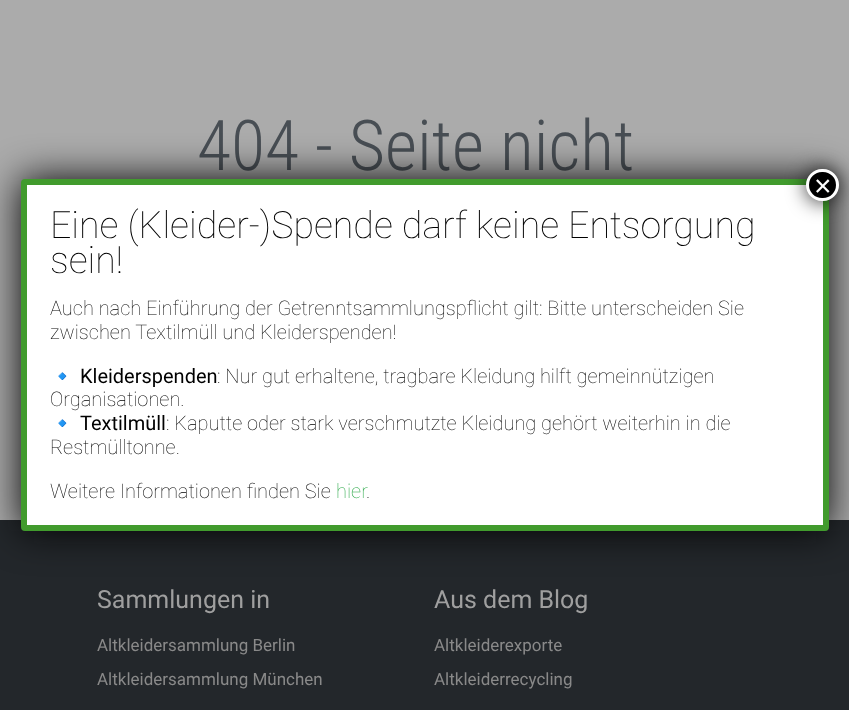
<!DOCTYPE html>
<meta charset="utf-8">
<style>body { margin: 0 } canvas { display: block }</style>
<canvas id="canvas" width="849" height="710"></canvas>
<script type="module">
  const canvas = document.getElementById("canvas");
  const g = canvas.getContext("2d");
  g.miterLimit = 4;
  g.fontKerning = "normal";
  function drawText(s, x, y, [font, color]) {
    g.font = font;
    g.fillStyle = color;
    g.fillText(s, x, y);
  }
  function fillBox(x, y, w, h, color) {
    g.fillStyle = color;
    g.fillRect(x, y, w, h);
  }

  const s1 = ["300 70px Roboto Condensed", "#484E54"];
  const s2 = ["30px Liberation Sans", "#FFFFFF"];
  const s3 = ["100 37.5px Roboto", "#000000"];
  const s4 = ["100 20px Roboto", "#000000"];
  const s5 = ["20px Noto Color Emoji", "#000000"];
  const s6 = ["20px Roboto", "#000000"];
  const s7 = ["100 20px Roboto", "#28A745"];
  const s8 = ["25px Roboto", "#9F9F9F"];
  const s9 = ["17px Roboto", "#898989"];

  fillBox(0, 0, 849, 710, "#ABABAB");
  drawText("404 - Seite nicht", 197, 170, s1);
  fillBox(0, 520, 849, 190, "#23272B");
  g.fillStyle = "#020202";
  g.filter = "blur(19px)";
  g.beginPath();
  g.roundRect(21, 179, 808, 352, 4);
  g.fill();
  g.filter = "none";
  g.fillStyle = "#FFFFFF";
  g.beginPath();
  g.roundRect(24, 182, 802, 346, 1);
  g.fill();
  g.strokeStyle = "#419B2D";
  g.lineWidth = 6;
  g.stroke();
  g.fillStyle = "rgba(2, 2, 2, 0.75)";
  g.filter = "blur(9.5px)";
  g.beginPath();
  g.roundRect(805, 168, 35, 35, 17.5);
  g.fill();
  g.filter = "none";
  g.fillStyle = "#000000";
  g.beginPath();
  g.roundRect(807.5, 170.5, 30, 29, 14.5);
  g.fill();
  g.strokeStyle = "#FFFFFF";
  g.lineWidth = 3;
  g.stroke();
  drawText("×", 814, 196, s2);
  drawText("Eine (Kleider-)Spende darf keine Entsorgung", 50, 238, s3);
  drawText("sein!", 50, 273, s3);
  drawText("Auch nach Einführung der Getrenntsammlungspflicht gilt: Bitte unterscheiden Sie", 50, 315, s4);
  drawText("zwischen Textilmüll und Kleiderspenden!", 50, 339, s4);
  drawText("🔹", 50, 383, s5);
  drawText("Kleiderspenden", 80, 383, s6);
  drawText(": Nur gut erhaltene, tragbare Kleidung hilft gemeinnützigen", 217, 383, s4);
  drawText("Organisationen.", 50, 406, s4);
  drawText("🔹", 50, 430, s5);
  drawText("Textilmüll", 80, 430, s6);
  drawText(": Kaputte oder stark verschmutzte Kleidung gehört weiterhin in die", 166, 430, s4);
  drawText("Restmülltonne.", 50, 454, s4);
  drawText("Weitere Informationen finden Sie", 50, 498, s4);
  drawText("hier", 336, 498, s7);
  drawText(".", 366, 498, s4);
  drawText("Sammlungen in", 97, 608, s8);
  drawText("Altkleidersammlung Berlin", 97, 651, s9);
  drawText("Altkleidersammlung München", 97, 685, s9);
  drawText("Aus dem Blog", 434, 608, s8);
  drawText("Altkleiderexporte", 434, 651, s9);
  drawText("Altkleiderrecycling", 434, 685, s9);
</script>
